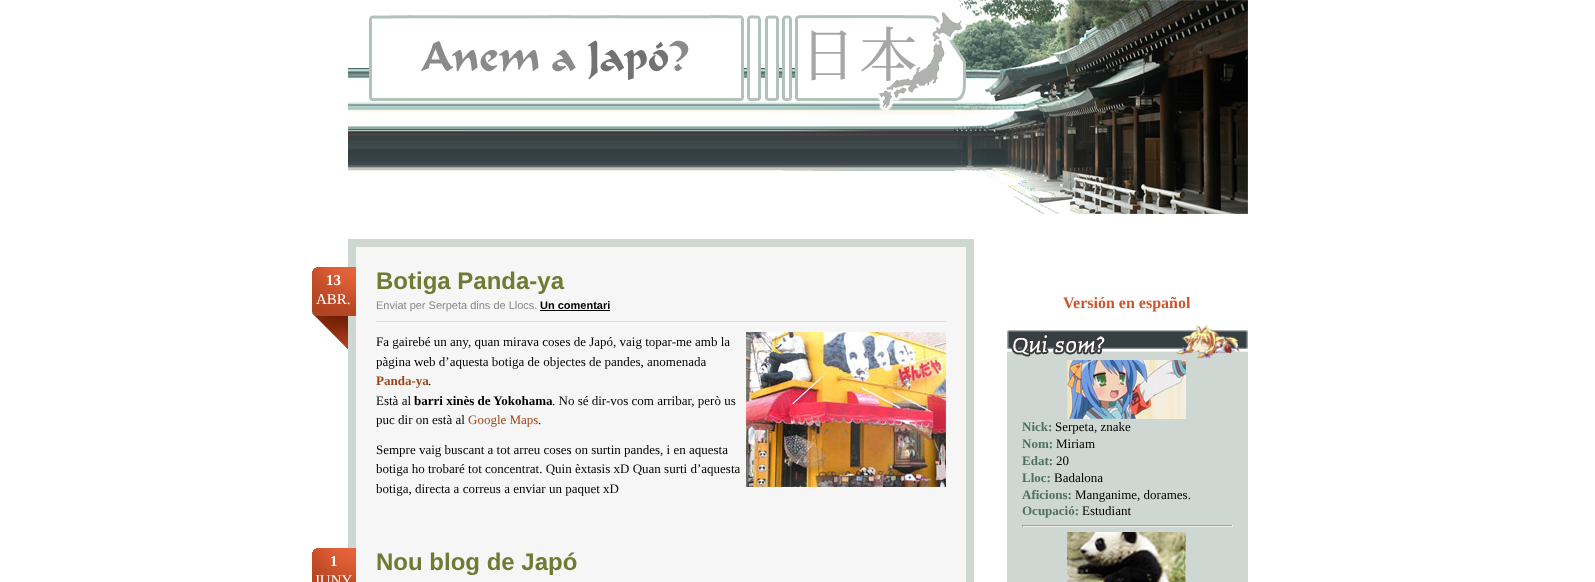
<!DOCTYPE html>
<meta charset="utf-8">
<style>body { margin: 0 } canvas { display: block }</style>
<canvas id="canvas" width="1595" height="582"></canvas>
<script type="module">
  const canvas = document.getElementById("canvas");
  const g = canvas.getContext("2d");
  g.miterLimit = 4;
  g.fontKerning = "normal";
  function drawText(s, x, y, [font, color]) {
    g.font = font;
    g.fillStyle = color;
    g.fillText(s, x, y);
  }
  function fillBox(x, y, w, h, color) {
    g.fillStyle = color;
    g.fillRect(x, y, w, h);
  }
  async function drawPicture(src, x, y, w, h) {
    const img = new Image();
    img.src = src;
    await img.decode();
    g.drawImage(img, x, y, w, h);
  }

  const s1 = ["bold 15px Liberation Serif", "#FFFFFF"];
  const s2 = ["15px Liberation Serif", "#FFFFFF"];
  const s3 = ["bold 24px Liberation Sans", "#6F7A33"];
  const s4 = ["11px Liberation Sans", "#878787"];
  const s5 = ["bold 11px Liberation Sans", "#000000"];
  const s6 = ["13px Liberation Serif", "#000000"];
  const s7 = ["bold 13px Liberation Serif", "#9C4617"];
  const s8 = ["bold 13px Liberation Serif", "#000000"];
  const s9 = ["13px Liberation Serif", "#9C4617"];
  const s10 = ["bold 16px Liberation Serif", "#CE542E"];
  const s11 = ["bold 13px Liberation Serif", "#507061"];

  fillBox(0, 0, 1595, 582, "#FFFFFF");
  await drawPicture("pic1.png", 348, 0, 900, 214);
  fillBox(348, 239, 626, 343, "#CED7D2");
  fillBox(356, 247, 610, 335, "#F6F6F6");
  await drawPicture("pic2.png", 312, 267, 44, 82);
  drawText("13", 326, 285, s1);
  drawText("ABR.", 316, 304, s2);
  drawText("Botiga Panda-ya", 376, 289, s3);
  fillBox(376, 321, 570, 1, "#DFDFDF");
  drawText("Enviat per Serpeta dins de Llocs.", 376, 309, s4);
  drawText("Un comentari", 540, 309, s5);
  fillBox(540, 310, 70, 1, "#000000");
  drawText("Fa gairebé un any, quan mirava coses de Japó, vaig topar-me amb la", 376, 346, s6);
  await drawPicture("pic3.png", 746, 332, 200, 155);
  drawText("pàgina web d’aquesta botiga de objectes de pandes, anomenada", 376, 366, s6);
  drawText("Panda-ya", 376, 385, s7);
  drawText(".", 428, 385, s6);
  drawText("Està al", 376, 405, s6);
  drawText("barri xinès de Yokohama", 414, 405, s8);
  drawText(". No sé dir-vos com arribar, però us", 552, 405, s6);
  drawText("puc dir on està al", 376, 424, s6);
  drawText("Google Maps", 468, 424, s9);
  drawText(".", 538, 424, s6);
  drawText("Sempre vaig buscant a tot arreu coses on surtin pandes, i en aquesta", 376, 454, s6);
  drawText("botiga ho trobaré tot concentrat. Quin èxtasis xD Quan surti d’aquesta", 376, 473, s6);
  drawText("botiga, directa a correus a enviar un paquet xD", 376, 493, s6);
  await drawPicture("pic4.png", 312, 548, 44, 34);
  drawText("1", 330, 566, s1);
  drawText("JUNY", 314, 585, s2);
  drawText("Nou blog de Japó", 376, 570, s3);
  drawText("Versión en español", 1063, 308, s10);
  fillBox(1007, 359, 241, 223, "#CED7D2");
  await drawPicture("pic5.png", 1007, 322, 241, 37);
  await drawPicture("pic6.png", 1067, 360, 119, 59);
  drawText("Nick:", 1022, 431, s11);
  drawText("Serpeta, znake", 1055, 431, s6);
  drawText("Nom:", 1022, 448, s11);
  drawText("Miriam", 1056, 448, s6);
  drawText("Edat:", 1022, 465, s11);
  drawText("20", 1056, 465, s6);
  drawText("Lloc:", 1022, 482, s11);
  drawText("Badalona", 1054, 482, s6);
  drawText("Aficions:", 1022, 499, s11);
  drawText("Manganime, dorames.", 1075, 499, s6);
  drawText("Ocupació:", 1022, 515, s11);
  drawText("Estudiant", 1082, 515, s6);
  fillBox(1022, 525, 211, 1, "#9F9F9F");
  fillBox(1232, 525, 1, 2, "#EEEEEE");
  fillBox(1022, 526, 211, 1, "#EEEEEE");
  fillBox(1022, 525, 1, 2, "#9F9F9F");
  await drawPicture("pic7.png", 1067, 532, 119, 50);
</script>
